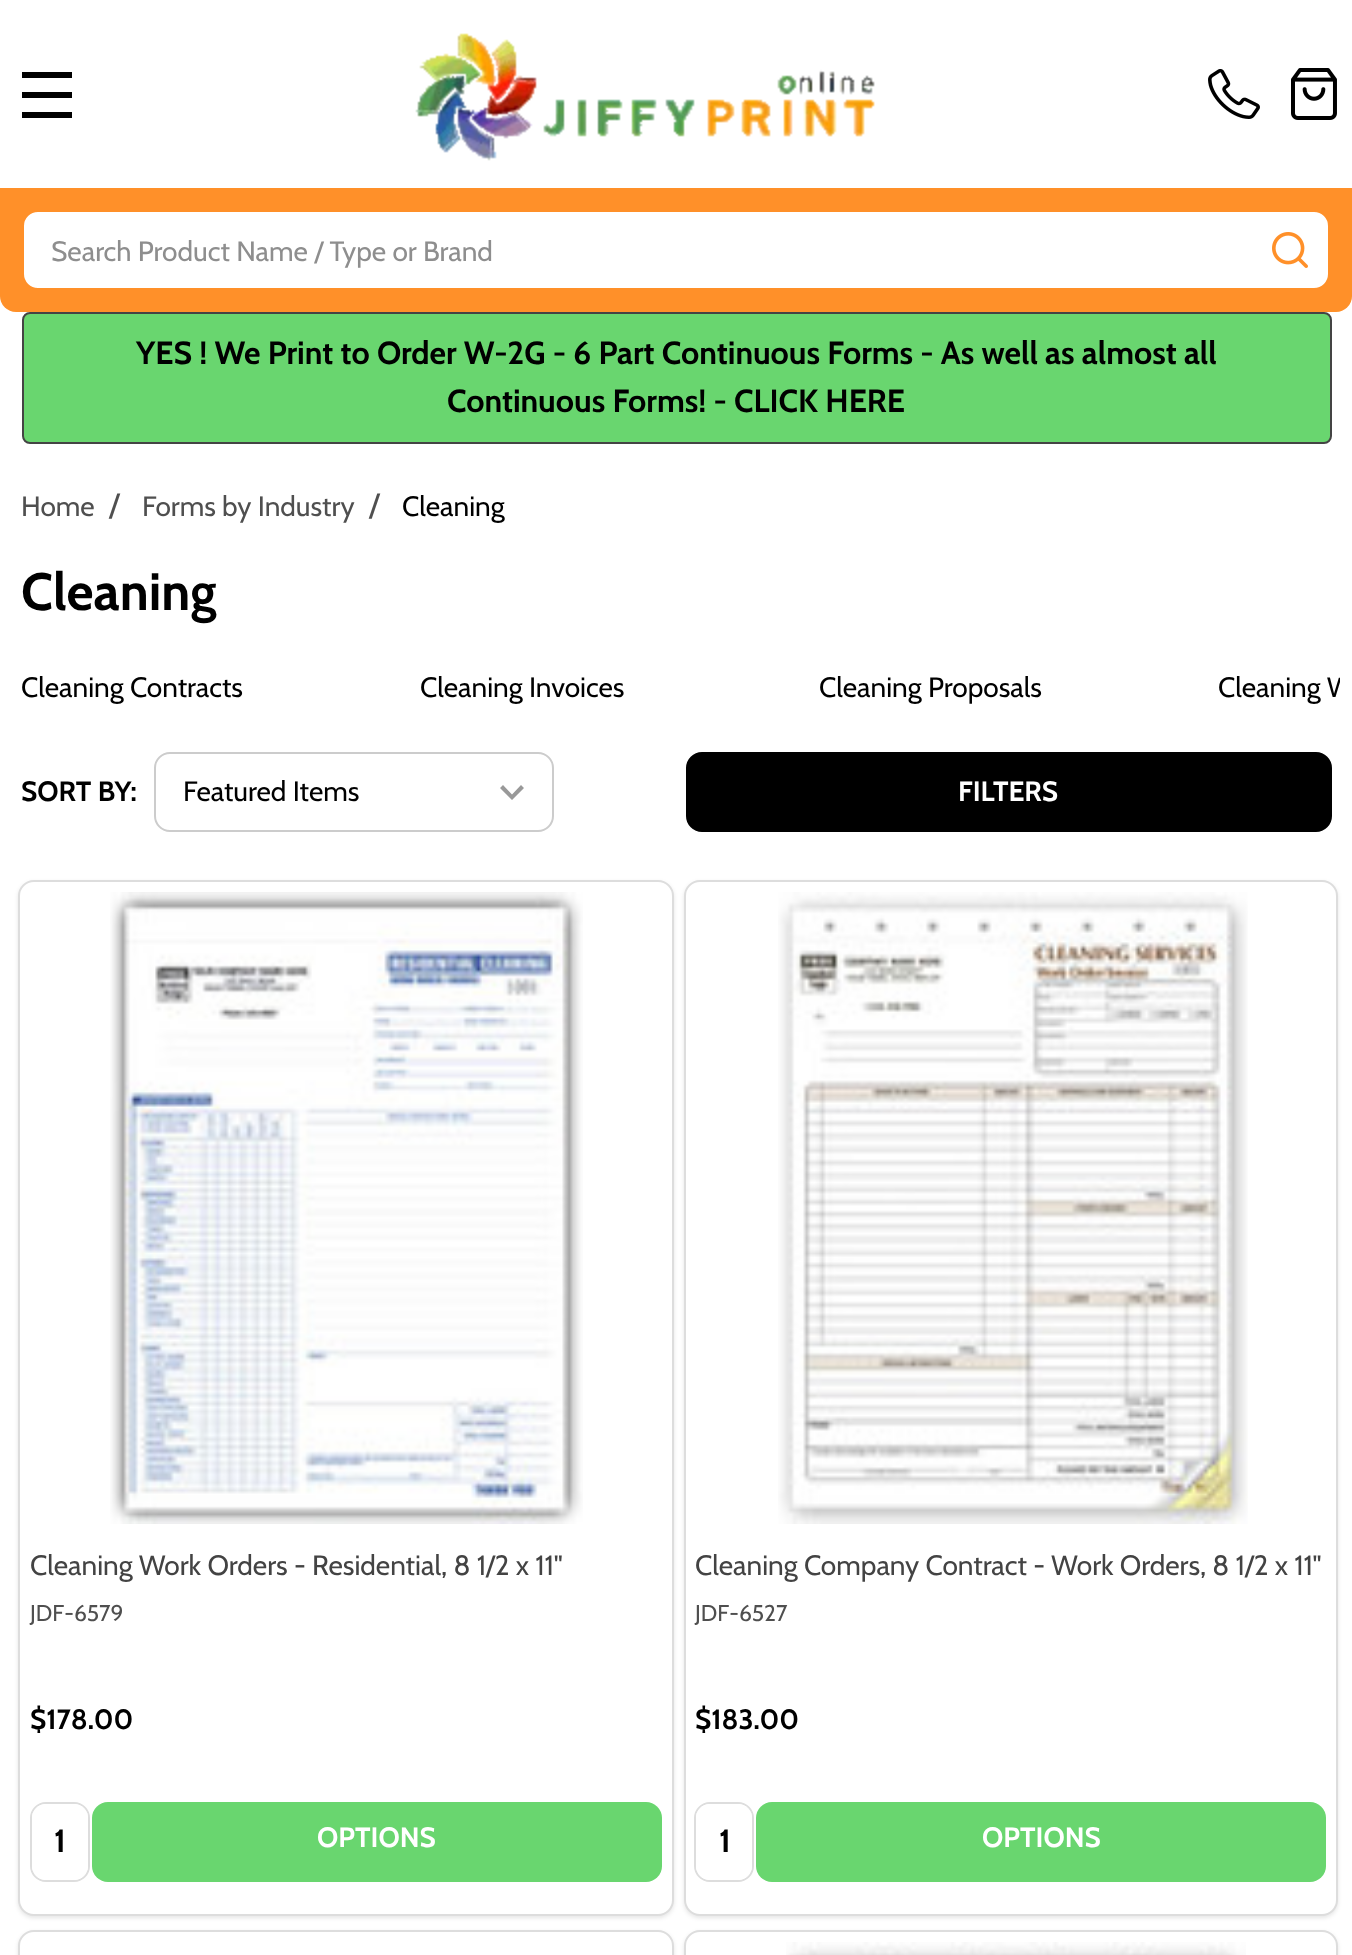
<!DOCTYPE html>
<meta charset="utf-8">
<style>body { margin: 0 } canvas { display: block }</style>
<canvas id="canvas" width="1352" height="1955"></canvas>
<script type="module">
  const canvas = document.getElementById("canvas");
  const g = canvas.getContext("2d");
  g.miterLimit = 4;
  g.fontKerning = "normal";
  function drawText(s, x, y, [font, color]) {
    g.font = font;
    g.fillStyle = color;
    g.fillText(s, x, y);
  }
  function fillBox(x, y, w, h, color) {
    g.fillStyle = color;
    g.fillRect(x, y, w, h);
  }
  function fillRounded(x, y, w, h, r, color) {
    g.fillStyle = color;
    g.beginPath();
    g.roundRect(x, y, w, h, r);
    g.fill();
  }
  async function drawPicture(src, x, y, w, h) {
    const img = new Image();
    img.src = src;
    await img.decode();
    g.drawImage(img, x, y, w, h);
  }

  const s1 = ["28px Cabin", "#8E8E8E"];
  const s2 = ["bold 32px Cabin", "#000000"];
  const s3 = ["28px Cabin", "#4F4F4F"];
  const s4 = ["32px Cabin", "#4F4F4F"];
  const s5 = ["28px Cabin", "#000000"];
  const s6 = ["bold 52.5px Cabin", "#000000"];
  const s7 = ["bold 28px Cabin", "#000000"];
  const s8 = ["bold 28px Cabin", "#FFFFFF"];
  const s9 = ["28px Cabin", "#434343"];
  const s10 = ["22.75px Cabin", "#4F4F4F"];

  fillBox(0, 0, 1352, 1955, "#FFFFFF");
  fillBox(22, 92, 50, 6, "#000000");
  fillBox(22, 72, 50, 6, "#000000");
  fillBox(22, 112, 50, 6, "#000000");
  await drawPicture("pic1.png", 415, 33, 460, 128);
  await drawPicture("pic2.png", 1208, 69, 52, 50);
  await drawPicture("pic3.png", 1291, 68, 46, 52);
  g.fillStyle = "#FF9029";
  g.beginPath();
  g.roundRect(0, 188, 1352, 124, [0, 0, 16, 16]);
  g.fill();
  g.fillStyle = "#FFFFFF";
  g.beginPath();
  g.roundRect(23, 211, 1306, 78, 15);
  g.fill();
  g.strokeStyle = "#FF9029";
  g.lineWidth = 2;
  g.stroke();
  drawText("Search Product Name / Type or Brand", 51, 261, s1);
  await drawPicture("pic4.png", 1272, 232, 36, 36);
  g.fillStyle = "#69D66F";
  g.beginPath();
  g.roundRect(23, 313, 1308, 130, 7);
  g.fill();
  g.strokeStyle = "#444444";
  g.stroke();
  drawText("YES ! We Print to Order W-2G - 6 Part Continuous Forms - As well as almost all", 136, 364, s2);
  drawText("Continuous Forms! - CLICK HERE", 447, 412, s2);
  drawText("Home", 21, 516, s3);
  drawText("/", 109, 516, s4);
  drawText("Forms by Industry", 142, 516, s3);
  drawText("/", 369, 516, s4);
  drawText("Cleaning", 402, 516, s5);
  drawText("Cleaning", 21, 610, s6);
  drawText("Cleaning Contracts", 21, 697, s5);
  drawText("Cleaning Invoices", 420, 697, s5);
  drawText("Cleaning Proposals", 819, 697, s5);
  g.save();
  g.beginPath();
  g.rect(12, 668, 1328, 42);
  g.clip();
  drawText("Cleaning W", 1218, 697, s5);
  g.restore();
  drawText("SORT BY:", 21, 801, s7);
  g.fillStyle = "#999999";
  g.beginPath();
  g.moveTo(521, 785);
  g.lineTo(512, 794.5);
  g.lineTo(503, 785);
  g.lineTo(500, 788);
  g.lineTo(512, 800);
  g.lineTo(524, 788);
  g.closePath();
  g.fill();
  g.beginPath();
  g.roundRect(155, 753, 398, 78, 15);
  g.strokeStyle = "#CCCCCC";
  g.stroke();
  drawText("Featured Items", 183, 801, s5);
  g.beginPath();
  g.roundRect(688, 754, 642, 76, 14);
  g.fill();
  g.strokeStyle = "#000000";
  g.lineWidth = 4;
  g.stroke();
  drawText("FILTERS", 958, 801, s8);
  g.fillStyle = "rgba(0, 0, 0, 0.1)";
  g.filter = "blur(2px)";
  g.beginPath();
  g.roundRect(18, 882, 656, 1036, 16);
  g.fill();
  g.filter = "none";
  g.fillStyle = "#FFFFFF";
  g.beginPath();
  g.roundRect(19, 881, 654, 1034, 15);
  g.fill();
  g.strokeStyle = "#DDDDDD";
  g.lineWidth = 2;
  g.stroke();
  await drawPicture("pic5.png", 110, 892, 473, 632);
  drawText("Cleaning Work Orders - Residential, 8 1/2 x 11\"", 30, 1575, s9);
  drawText("JDF-6579", 30, 1621, s10);
  drawText("$178.00", 30, 1729, s7);
  g.beginPath();
  g.roundRect(31, 1803, 58, 78, 15);
  g.stroke();
  fillRounded(32, 1804, 56, 76, 14, "#FFFFFF");
  drawText("1", 54, 1852, s2);
  fillRounded(92, 1802, 570, 80, 16, "#69D66F");
  drawText("OPTIONS", 317, 1847, s8);
  g.fillStyle = "rgba(0, 0, 0, 0.1)";
  g.filter = "blur(2px)";
  g.beginPath();
  g.roundRect(684, 882, 654, 1036, 16);
  g.fill();
  g.filter = "none";
  g.fillStyle = "#FFFFFF";
  g.beginPath();
  g.roundRect(685, 881, 652, 1034, 15);
  g.fill();
  g.stroke();
  await drawPicture("pic6.png", 778, 892, 470, 632);
  drawText("Cleaning Company Contract - Work Orders, 8 1/2 x 11\"", 695, 1575, s9);
  drawText("JDF-6527", 695, 1621, s10);
  drawText("$183.00", 695, 1729, s7);
  g.beginPath();
  g.roundRect(695, 1803, 58, 78, 15);
  g.stroke();
  fillRounded(696, 1804, 56, 76, 14, "#FFFFFF");
  drawText("1", 719, 1852, s2);
  fillRounded(756, 1802, 570, 80, 16, "#69D66F");
  drawText("OPTIONS", 982, 1847, s8);
  g.fillStyle = "rgba(0, 0, 0, 0.1)";
  g.filter = "blur(2px)";
  g.beginPath();
  g.roundRect(18, 1932, 656, 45, 16);
  g.fill();
  g.filter = "none";
  g.fillStyle = "#FFFFFF";
  g.beginPath();
  g.roundRect(19, 1931, 654, 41, 15);
  g.fill();
  g.stroke();
  g.fillStyle = "rgba(0, 0, 0, 0.1)";
  g.filter = "blur(2px)";
  g.beginPath();
  g.roundRect(684, 1932, 654, 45, 16);
  g.fill();
  g.filter = "none";
  g.fillStyle = "#FFFFFF";
  g.beginPath();
  g.roundRect(685, 1931, 652, 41, 15);
  g.fill();
  g.stroke();
  await drawPicture("pic7.png", 786, 1942, 460, 13);
</script>
